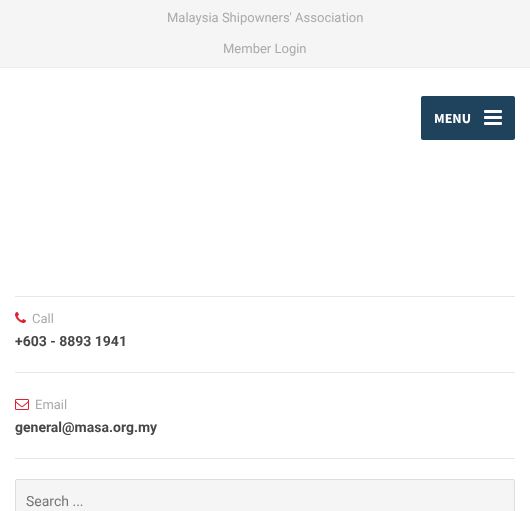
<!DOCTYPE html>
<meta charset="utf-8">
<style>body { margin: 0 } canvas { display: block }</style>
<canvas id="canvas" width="530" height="511"></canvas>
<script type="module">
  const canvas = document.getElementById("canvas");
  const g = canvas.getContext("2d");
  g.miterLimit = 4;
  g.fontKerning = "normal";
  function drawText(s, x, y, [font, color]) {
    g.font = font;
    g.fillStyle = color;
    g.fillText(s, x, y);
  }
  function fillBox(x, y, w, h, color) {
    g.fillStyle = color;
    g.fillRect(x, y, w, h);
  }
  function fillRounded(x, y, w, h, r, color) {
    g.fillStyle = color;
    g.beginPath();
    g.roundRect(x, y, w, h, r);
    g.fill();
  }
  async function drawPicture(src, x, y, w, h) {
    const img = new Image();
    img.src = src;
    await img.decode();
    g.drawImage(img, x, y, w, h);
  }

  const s1 = ["13px Roboto", "#AAAAAA"];
  const s2 = ["bold 14px Source Sans Pro", "#FFFFFF"];
  const s3 = ["bold 14px Roboto", "#474747"];
  const s4 = ["14px Roboto", "#757575"];

  fillBox(0, 0, 530, 511, "#FFFFFF");
  fillBox(0, 0, 530, 67, "#F5F5F5");
  fillBox(0, 67, 530, 1, "#EDEDED");
  drawText("Malaysia Shipowners' Association", 167, 22, s1);
  drawText("Member Login", 223, 53, s1);
  fillBox(15, 296, 500, 1, "#E6E6E6");
  fillRounded(421, 96, 94, 44, 2, "#1F425D");
  drawText("MENU", 434, 123, s2);
  fillRounded(484, 110, 18, 3, 1, "#FFFFFF");
  fillRounded(484, 116, 18, 3, 1, "#FFFFFF");
  fillRounded(484, 122, 18, 3, 1, "#FFFFFF");
  fillBox(15, 372, 500, 1, "#E6E6E6");
  await drawPicture("pic1.png", 15, 312, 11, 11);
  drawText("Call", 32, 323, s1);
  drawText("+603 - 8893 1941", 15, 346, s3);
  fillBox(15, 458, 500, 1, "#E6E6E6");
  await drawPicture("pic2.png", 15, 399, 14, 11);
  drawText("Email", 35, 409, s1);
  drawText("general@masa.org.my", 15, 432, s3);
  g.fillStyle = "#F5F5F5";
  g.beginPath();
  g.roundRect(15.5, 479.5, 499, 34, 1.5);
  g.fill();
  g.strokeStyle = "#DDDDDD";
  g.stroke();
  drawText("Search ...", 26, 506, s4);
</script>
